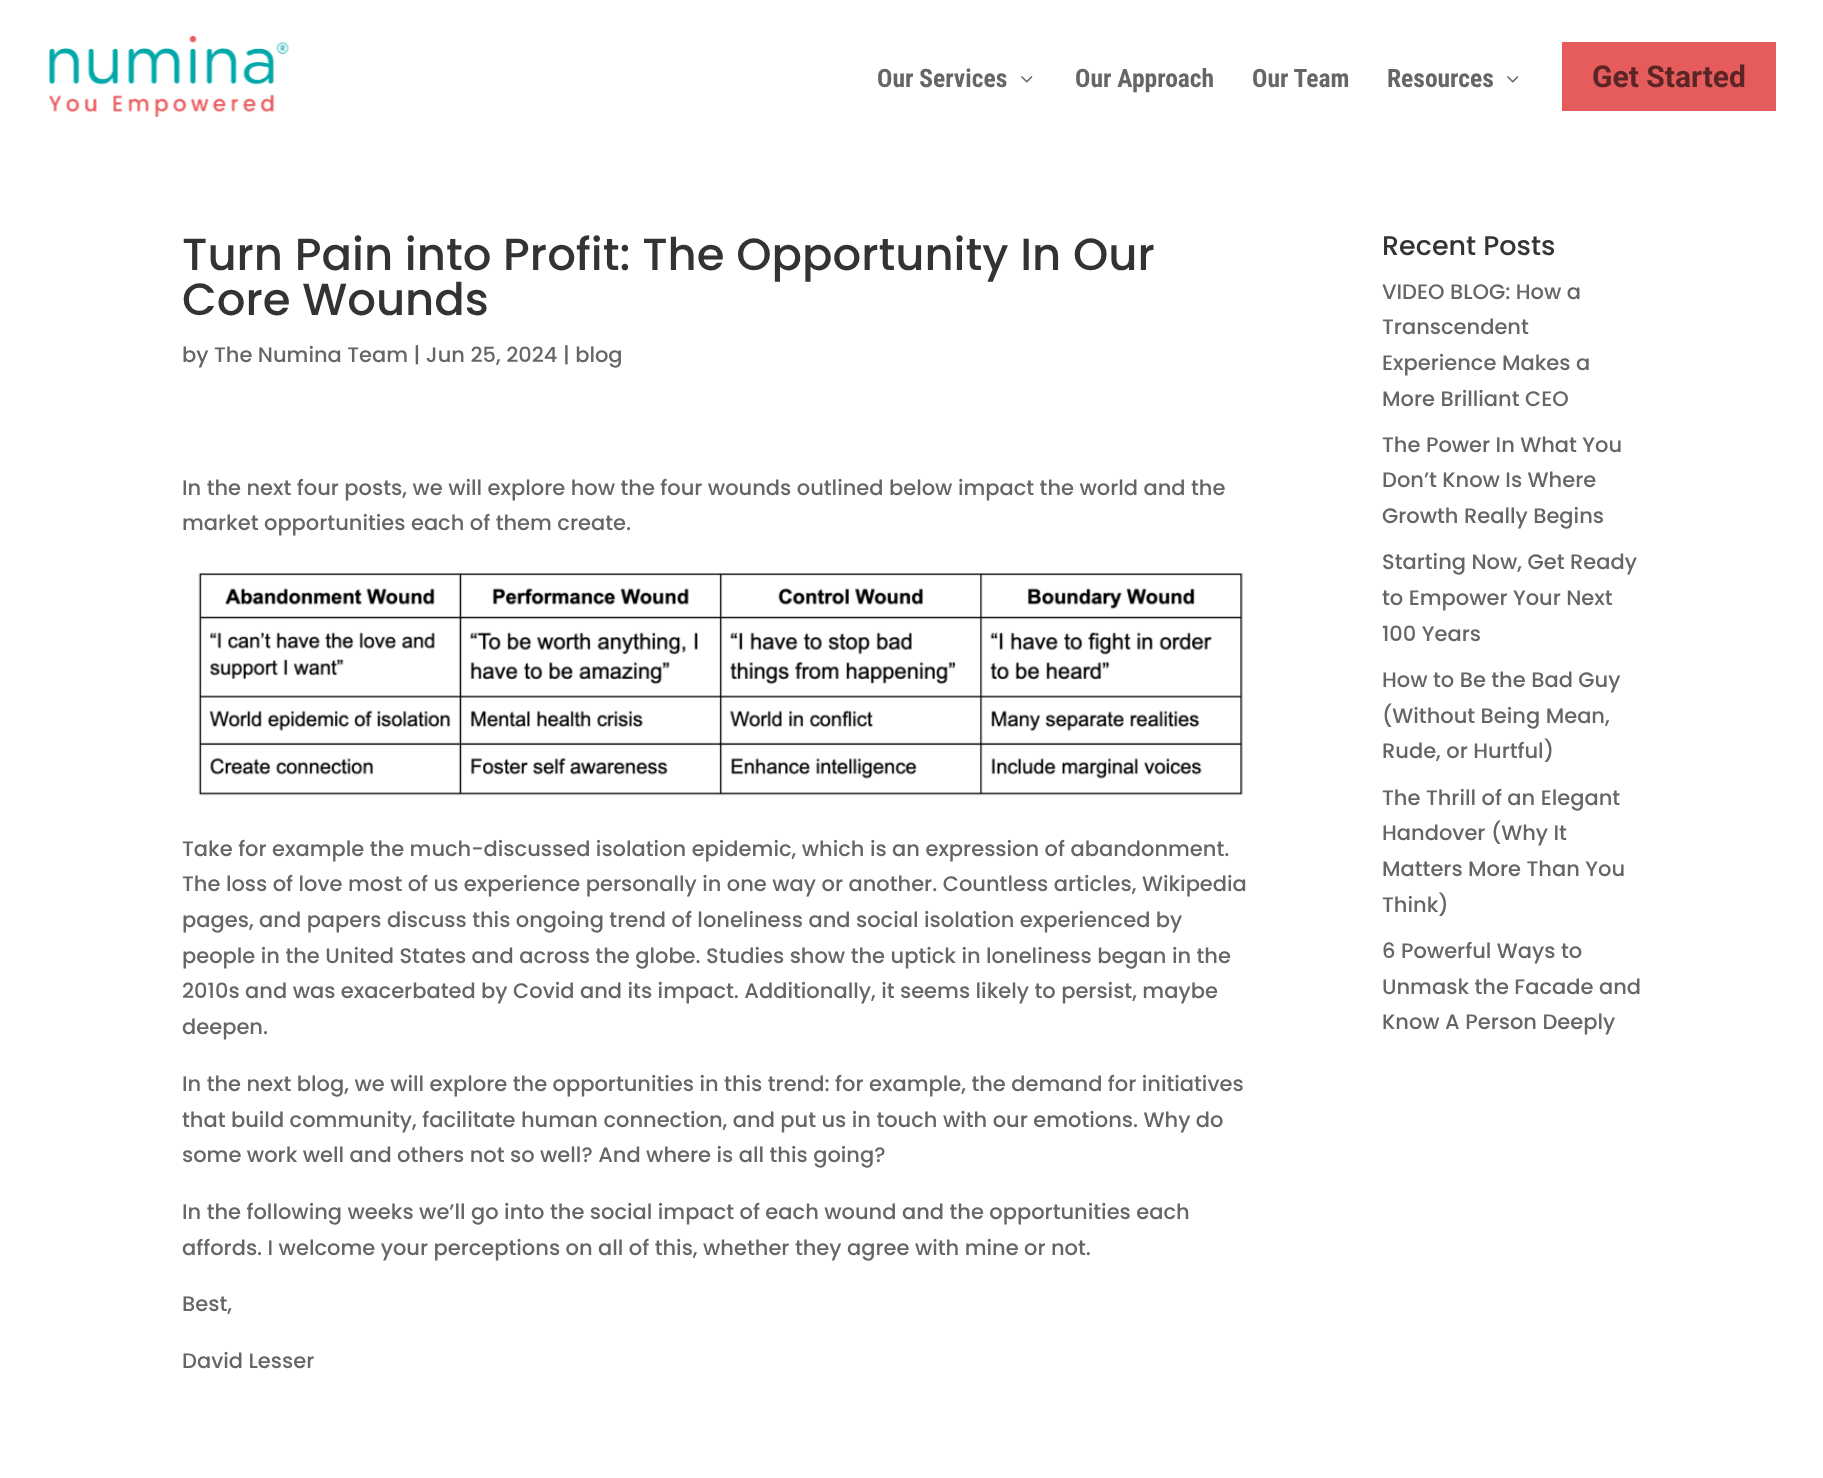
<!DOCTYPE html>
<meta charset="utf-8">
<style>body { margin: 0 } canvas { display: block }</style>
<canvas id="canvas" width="1823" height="1478"></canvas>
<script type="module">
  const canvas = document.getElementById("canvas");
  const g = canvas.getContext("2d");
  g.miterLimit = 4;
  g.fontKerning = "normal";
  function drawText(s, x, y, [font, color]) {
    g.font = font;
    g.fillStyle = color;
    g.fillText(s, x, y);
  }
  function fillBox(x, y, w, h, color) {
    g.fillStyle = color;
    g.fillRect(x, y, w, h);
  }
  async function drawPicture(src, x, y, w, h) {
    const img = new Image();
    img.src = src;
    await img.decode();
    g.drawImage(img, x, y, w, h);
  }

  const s1 = ["bold 25.5px Roboto Condensed", "#666666"];
  const s2 = ["bold 30px Roboto", "#5C2525"];
  const s3 = ["500 45px Poppins", "#333333"];
  const s4 = ["500 21px Poppins", "#666666"];
  const s5 = ["500 27px Poppins", "#333333"];

  fillBox(0, 0, 1823, 1478, "#FFFFFF");
  await drawPicture("pic1.png", 49, 36, 240, 81);
  drawText("Our Services", 877, 87, s1);
  await drawPicture("pic2.png", 1021, 76, 12, 7);
  drawText("Our Approach", 1075, 87, s1);
  drawText("Our Team", 1252, 87, s1);
  drawText("Resources", 1387, 87, s1);
  await drawPicture("pic2.png", 1507, 76, 12, 7);
  fillBox(1562, 42, 214, 69, "#E65C5C");
  drawText("Get Started", 1592, 87, s2);
  drawText("Turn Pain into Profit: The Opportunity In Our", 182, 270, s3);
  drawText("Core Wounds", 182, 315, s3);
  drawText("by The Numina Team | Jun 25, 2024 | blog", 182, 362, s4);
  drawText("In the next four posts, we will explore how the four wounds outlined below impact the world and the", 182, 495, s4);
  drawText("market opportunities each of them create.", 182, 530, s4);
  await drawPicture("pic3.png", 198, 573, 1045, 223);
  drawText("Take for example the much-discussed isolation epidemic, which is an expression of abandonment.", 182, 856, s4);
  drawText("The loss of love most of us experience personally in one way or another. Countless articles, Wikipedia", 182, 891, s4);
  drawText("pages, and papers discuss this ongoing trend of loneliness and social isolation experienced by", 182, 927, s4);
  drawText("people in the United States and across the globe. Studies show the uptick in loneliness began in the", 182, 963, s4);
  drawText("2010s and was exacerbated by Covid and its impact. Additionally, it seems likely to persist, maybe", 182, 998, s4);
  drawText("deepen.", 182, 1034, s4);
  drawText("In the next blog, we will explore the opportunities in this trend: for example, the demand for initiatives", 182, 1091, s4);
  drawText("that build community, facilitate human connection, and put us in touch with our emotions. Why do", 182, 1127, s4);
  drawText("some work well and others not so well? And where is all this going?", 182, 1162, s4);
  drawText("In the following weeks we’ll go into the social impact of each wound and the opportunities each", 182, 1219, s4);
  drawText("affords. I welcome your perceptions on all of this, whether they agree with mine or not.", 182, 1255, s4);
  drawText("Best,", 182, 1311, s4);
  drawText("David Lesser", 182, 1368, s4);
  drawText("Recent Posts", 1382, 255, s5);
  drawText("VIDEO BLOG: How a", 1382, 299, s4);
  drawText("Transcendent", 1382, 334, s4);
  drawText("Experience Makes a", 1382, 370, s4);
  drawText("More Brilliant CEO", 1382, 406, s4);
  drawText("The Power In What You", 1382, 452, s4);
  drawText("Don’t Know Is Where", 1382, 487, s4);
  drawText("Growth Really Begins", 1382, 523, s4);
  drawText("Starting Now, Get Ready", 1382, 569, s4);
  drawText("to Empower Your Next", 1382, 605, s4);
  drawText("100 Years", 1382, 641, s4);
  drawText("How to Be the Bad Guy", 1382, 687, s4);
  drawText("(Without Being Mean,", 1382, 723, s4);
  drawText("Rude, or Hurtful)", 1382, 758, s4);
  drawText("The Thrill of an Elegant", 1382, 805, s4);
  drawText("Handover (Why It", 1382, 840, s4);
  drawText("Matters More Than You", 1382, 876, s4);
  drawText("Think)", 1382, 912, s4);
  drawText("6 Powerful Ways to", 1382, 958, s4);
  drawText("Unmask the Facade and", 1382, 994, s4);
  drawText("Know A Person Deeply", 1382, 1029, s4);
</script>
